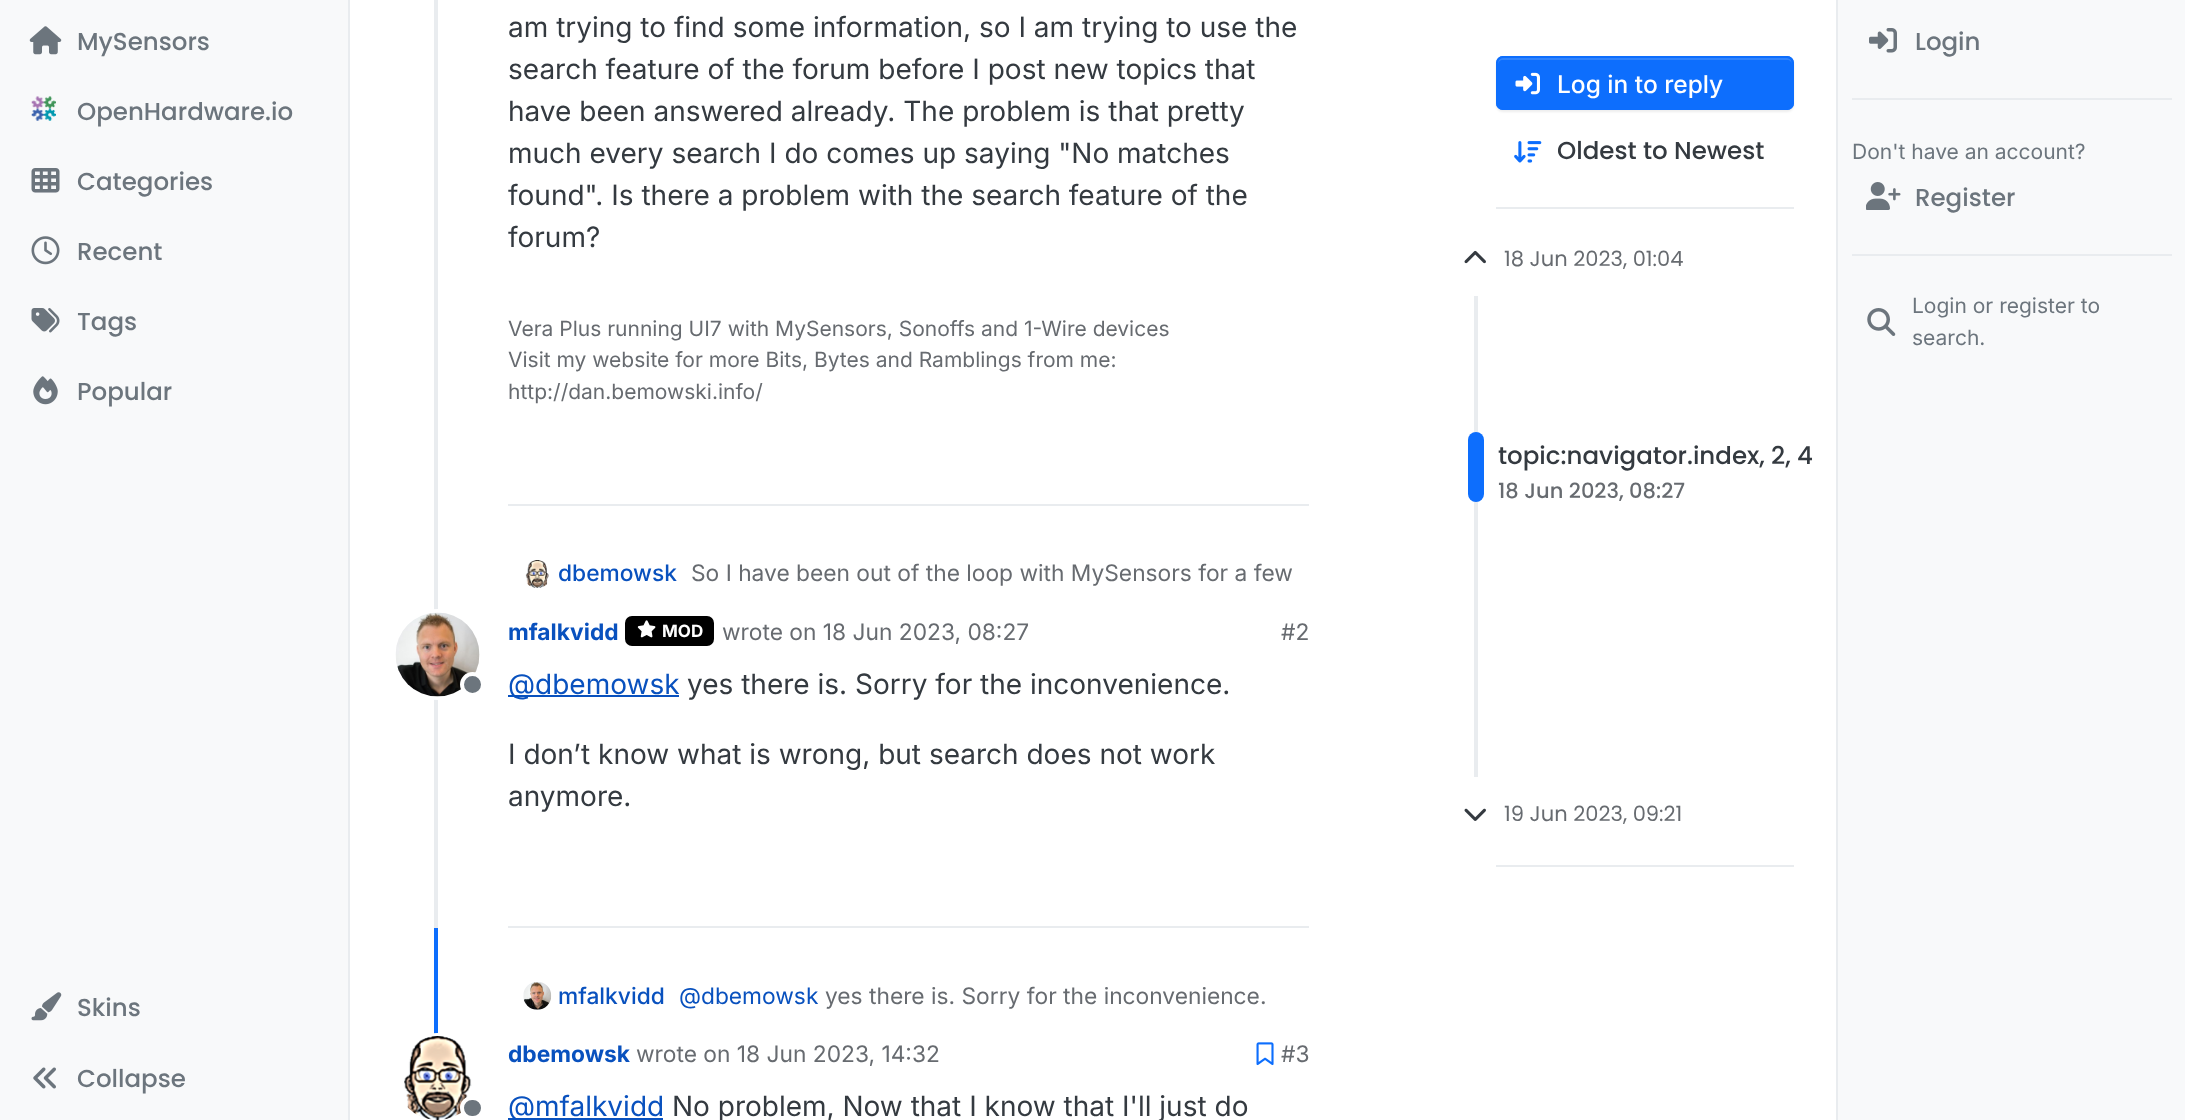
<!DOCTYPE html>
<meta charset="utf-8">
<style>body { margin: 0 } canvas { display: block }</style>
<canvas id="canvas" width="2185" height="1120"></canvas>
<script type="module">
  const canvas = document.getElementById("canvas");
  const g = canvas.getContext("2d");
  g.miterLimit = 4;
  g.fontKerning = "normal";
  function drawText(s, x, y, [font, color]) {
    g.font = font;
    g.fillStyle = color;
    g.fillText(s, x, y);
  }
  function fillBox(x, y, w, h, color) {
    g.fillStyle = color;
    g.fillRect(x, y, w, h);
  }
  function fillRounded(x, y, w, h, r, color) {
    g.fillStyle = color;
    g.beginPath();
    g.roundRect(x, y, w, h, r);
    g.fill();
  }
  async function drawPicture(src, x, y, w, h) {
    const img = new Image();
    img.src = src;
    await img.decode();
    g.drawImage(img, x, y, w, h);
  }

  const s1 = ["500 24.5px Poppins", "#6C757D"];
  const s2 = ["28px Inter", "#343A40"];
  const s3 = ["21px Inter", "#676B70"];
  const s4 = ["500 22.75px Inter", "#0951BE"];
  const s5 = ["22.75px Inter", "#676B70"];
  const s6 = ["bold 22.75px Inter", "#0951BE"];
  const s7 = ["bold 17px Inter", "#FFFFFF"];
  const s8 = ["28px Inter", "#0951BE"];
  const s9 = ["22.75px Inter", "#0951BE"];
  const s10 = ["500 24.5px Inter", "#FFFFFF"];
  const s11 = ["500 24.5px Poppins", "#343A40"];
  const s12 = ["21px Poppins", "#676B70"];
  const s13 = ["500 21px Poppins", "#676B70"];
  const s14 = ["21px Inter", "#6C757D"];

  fillBox(0, 0, 2185, 1120, "#FFFFFF");
  fillBox(0, 0, 348, 1120, "#F8F9FA");
  fillBox(348, 0, 2, 1120, "#E9ECEF");
  await drawPicture("pic1.png", 29, 26, 33, 29);
  drawText("MySensors", 77, 50, s1);
  await drawPicture("pic2.png", 31, 96, 25, 25);
  drawText("OpenHardware.io", 77, 120, s1);
  await drawPicture("pic3.png", 31, 168, 29, 25);
  drawText("Categories", 77, 190, s1);
  await drawPicture("pic4.png", 31, 236, 29, 29);
  drawText("Recent", 77, 260, s1);
  await drawPicture("pic5.png", 31, 308, 29, 25);
  drawText("Tags", 77, 330, s1);
  await drawPicture("pic6.png", 33, 376, 25, 29);
  drawText("Popular", 77, 400, s1);
  await drawPicture("pic7.png", 31, 992, 31, 29);
  drawText("Skins", 77, 1016, s1);
  await drawPicture("pic8.png", 33, 1067, 23, 22);
  drawText("Collapse", 77, 1087, s1);
  fillBox(434, 0, 4, 928, "#E9ECEF");
  drawText("am trying to find some information, so I am trying to use the", 508, 37, s2);
  drawText("search feature of the forum before I post new topics that", 508, 79, s2);
  drawText("have been answered already. The problem is that pretty", 508, 121, s2);
  drawText("much every search I do comes up saying \"No matches", 508, 163, s2);
  drawText("found\". Is there a problem with the search feature of the", 508, 205, s2);
  drawText("forum?", 508, 247, s2);
  fillBox(508, 504, 801, 2, "#E9ECEF");
  drawText("Vera Plus running UI7 with MySensors, Sonoffs and 1-Wire devices", 508, 336, s3);
  drawText("Visit my website for more Bits, Bytes and Ramblings from me:", 508, 367, s3);
  drawText("http://dan.bemowski.info/", 508, 399, s3);
  await drawPicture("pic9.png", 525, 560, 24, 28);
  drawText("dbemowsk", 558, 581, s4);
  drawText("So I have been out of the loop with MySensors for a few", 691, 581, s5);
  g.beginPath();
  g.arc(437.5, 654.5, 43.5, 0, Math.PI * 2);
  g.strokeStyle = "#FFFFFF";
  g.lineWidth = 4;
  g.stroke();
  await drawPicture("pic10.png", 395, 612, 85, 85);
  g.fillStyle = "#6C757D";
  g.beginPath();
  g.arc(472.5, 684.5, 10.5, 0, Math.PI * 2);
  g.fill();
  g.stroke();
  drawText("mfalkvidd", 508, 640, s6);
  fillRounded(625, 616, 89, 30, 7, "#000000");
  await drawPicture("pic11.png", 637, 620, 19, 18);
  drawText("MOD", 662, 637, s7);
  drawText("wrote on 18 Jun 2023, 08:27", 722, 640, s5);
  drawText("#2", 1281, 640, s5);
  fillBox(508, 695, 171, 2, "#0951BE");
  drawText("@dbemowsk", 508, 694, s8);
  drawText("yes there is. Sorry for the inconvenience.", 687, 694, s2);
  drawText("I don’t know what is wrong, but search does not work", 508, 764, s2);
  drawText("anymore.", 508, 806, s2);
  fillBox(508, 926, 801, 2, "#E9ECEF");
  fillBox(434, 928, 4, 192, "#0D6EFD");
  await drawPicture("pic12.png", 523, 982, 29, 28);
  drawText("mfalkvidd", 558, 1004, s4);
  drawText("@dbemowsk", 679, 1004, s9);
  drawText("yes there is. Sorry for the inconvenience.", 825, 1004, s5);
  g.fillStyle = "#FFFFFF";
  g.beginPath();
  g.arc(437.5, 1078.5, 43.5, 0, Math.PI * 2);
  g.fill();
  g.stroke();
  await drawPicture("pic13.png", 404, 1036, 68, 84);
  g.fillStyle = "#6C757D";
  g.beginPath();
  g.roundRect(462, 1098, 21, 20, 10);
  g.fill();
  g.stroke();
  drawText("dbemowsk", 508, 1062, s6);
  drawText("wrote on 18 Jun 2023, 14:32", 636, 1062, s5);
  await drawPicture("pic14.png", 1256, 1042, 18, 24);
  drawText("#3", 1281, 1062, s5);
  fillBox(508, 1118, 155, 2, "#0951BE");
  drawText("@mfalkvidd", 508, 1116, s8);
  drawText("No problem, Now that I know that I'll just do", 672, 1116, s2);
  g.fillStyle = "rgba(0, 0, 0, 0.07)";
  g.filter = "blur(1px)";
  g.beginPath();
  g.roundRect(1496, 58, 298, 54, 7);
  g.fill();
  g.filter = "none";
  fillRounded(1496, 56, 298, 54, 7, "#0D6EFD");
  g.fillStyle = "#3184FD";
  g.beginPath();
  g.moveTo(1503, 60);
  g.lineTo(1787, 60);
  g.bezierCurveTo(1790, 60, 1792, 62, 1792, 65);
  g.bezierCurveTo(1792, 62, 1791, 58, 1787, 58);
  g.lineTo(1502, 58);
  g.bezierCurveTo(1498, 59, 1498, 62, 1498, 65);
  g.bezierCurveTo(1498, 62, 1500, 60, 1503, 60);
  g.closePath();
  g.fill();
  g.beginPath();
  g.roundRect(1497, 57, 296, 52, 6);
  g.strokeStyle = "#0D6EFD";
  g.lineWidth = 2;
  g.stroke();
  await drawPicture("pic15.png", 1515, 72, 25, 23);
  drawText("Log in to reply", 1557, 93, s10);
  await drawPicture("pic16.png", 1514, 141, 28, 22);
  g.save();
  g.beginPath();
  g.rect(1558, 133, 206, 37);
  g.clip();
  drawText("Oldest to Newest", 1557, 159, s11);
  g.restore();
  fillBox(1496, 207, 298, 2, "#E9ECEF");
  await drawPicture("pic17.png", 1464, 250, 22, 14);
  drawText("18 Jun 2023, 01:04", 1504, 266, s12);
  fillBox(1474, 296, 4, 481, "#E9ECEF");
  fillRounded(1468, 432, 16, 70, 8, "#0D6EFD");
  drawText("topic:navigator.index, 2, 4", 1498, 464, s11);
  drawText("18 Jun 2023, 08:27", 1498, 498, s13);
  await drawPicture("pic18.png", 1464, 808, 22, 13);
  drawText("19 Jun 2023, 09:21", 1504, 821, s12);
  fillBox(1496, 865, 298, 2, "#E9ECEF");
  fillBox(1838, 0, 347, 1120, "#F8F9FA");
  fillBox(1836, 0, 2, 1120, "#E9ECEF");
  await drawPicture("pic19.png", 1869, 28, 28, 25);
  drawText("Login", 1915, 50, s1);
  fillBox(1852, 98, 320, 2, "#E9ECEF");
  drawText("Don't have an account?", 1852, 159, s14);
  await drawPicture("pic20.png", 1866, 182, 35, 28);
  drawText("Register", 1915, 206, s1);
  fillBox(1852, 254, 320, 2, "#E9ECEF");
  await drawPicture("pic21.png", 1867, 308, 29, 28);
  drawText("Login or register to", 1912, 313, s14);
  drawText("search.", 1912, 345, s14);
</script>
